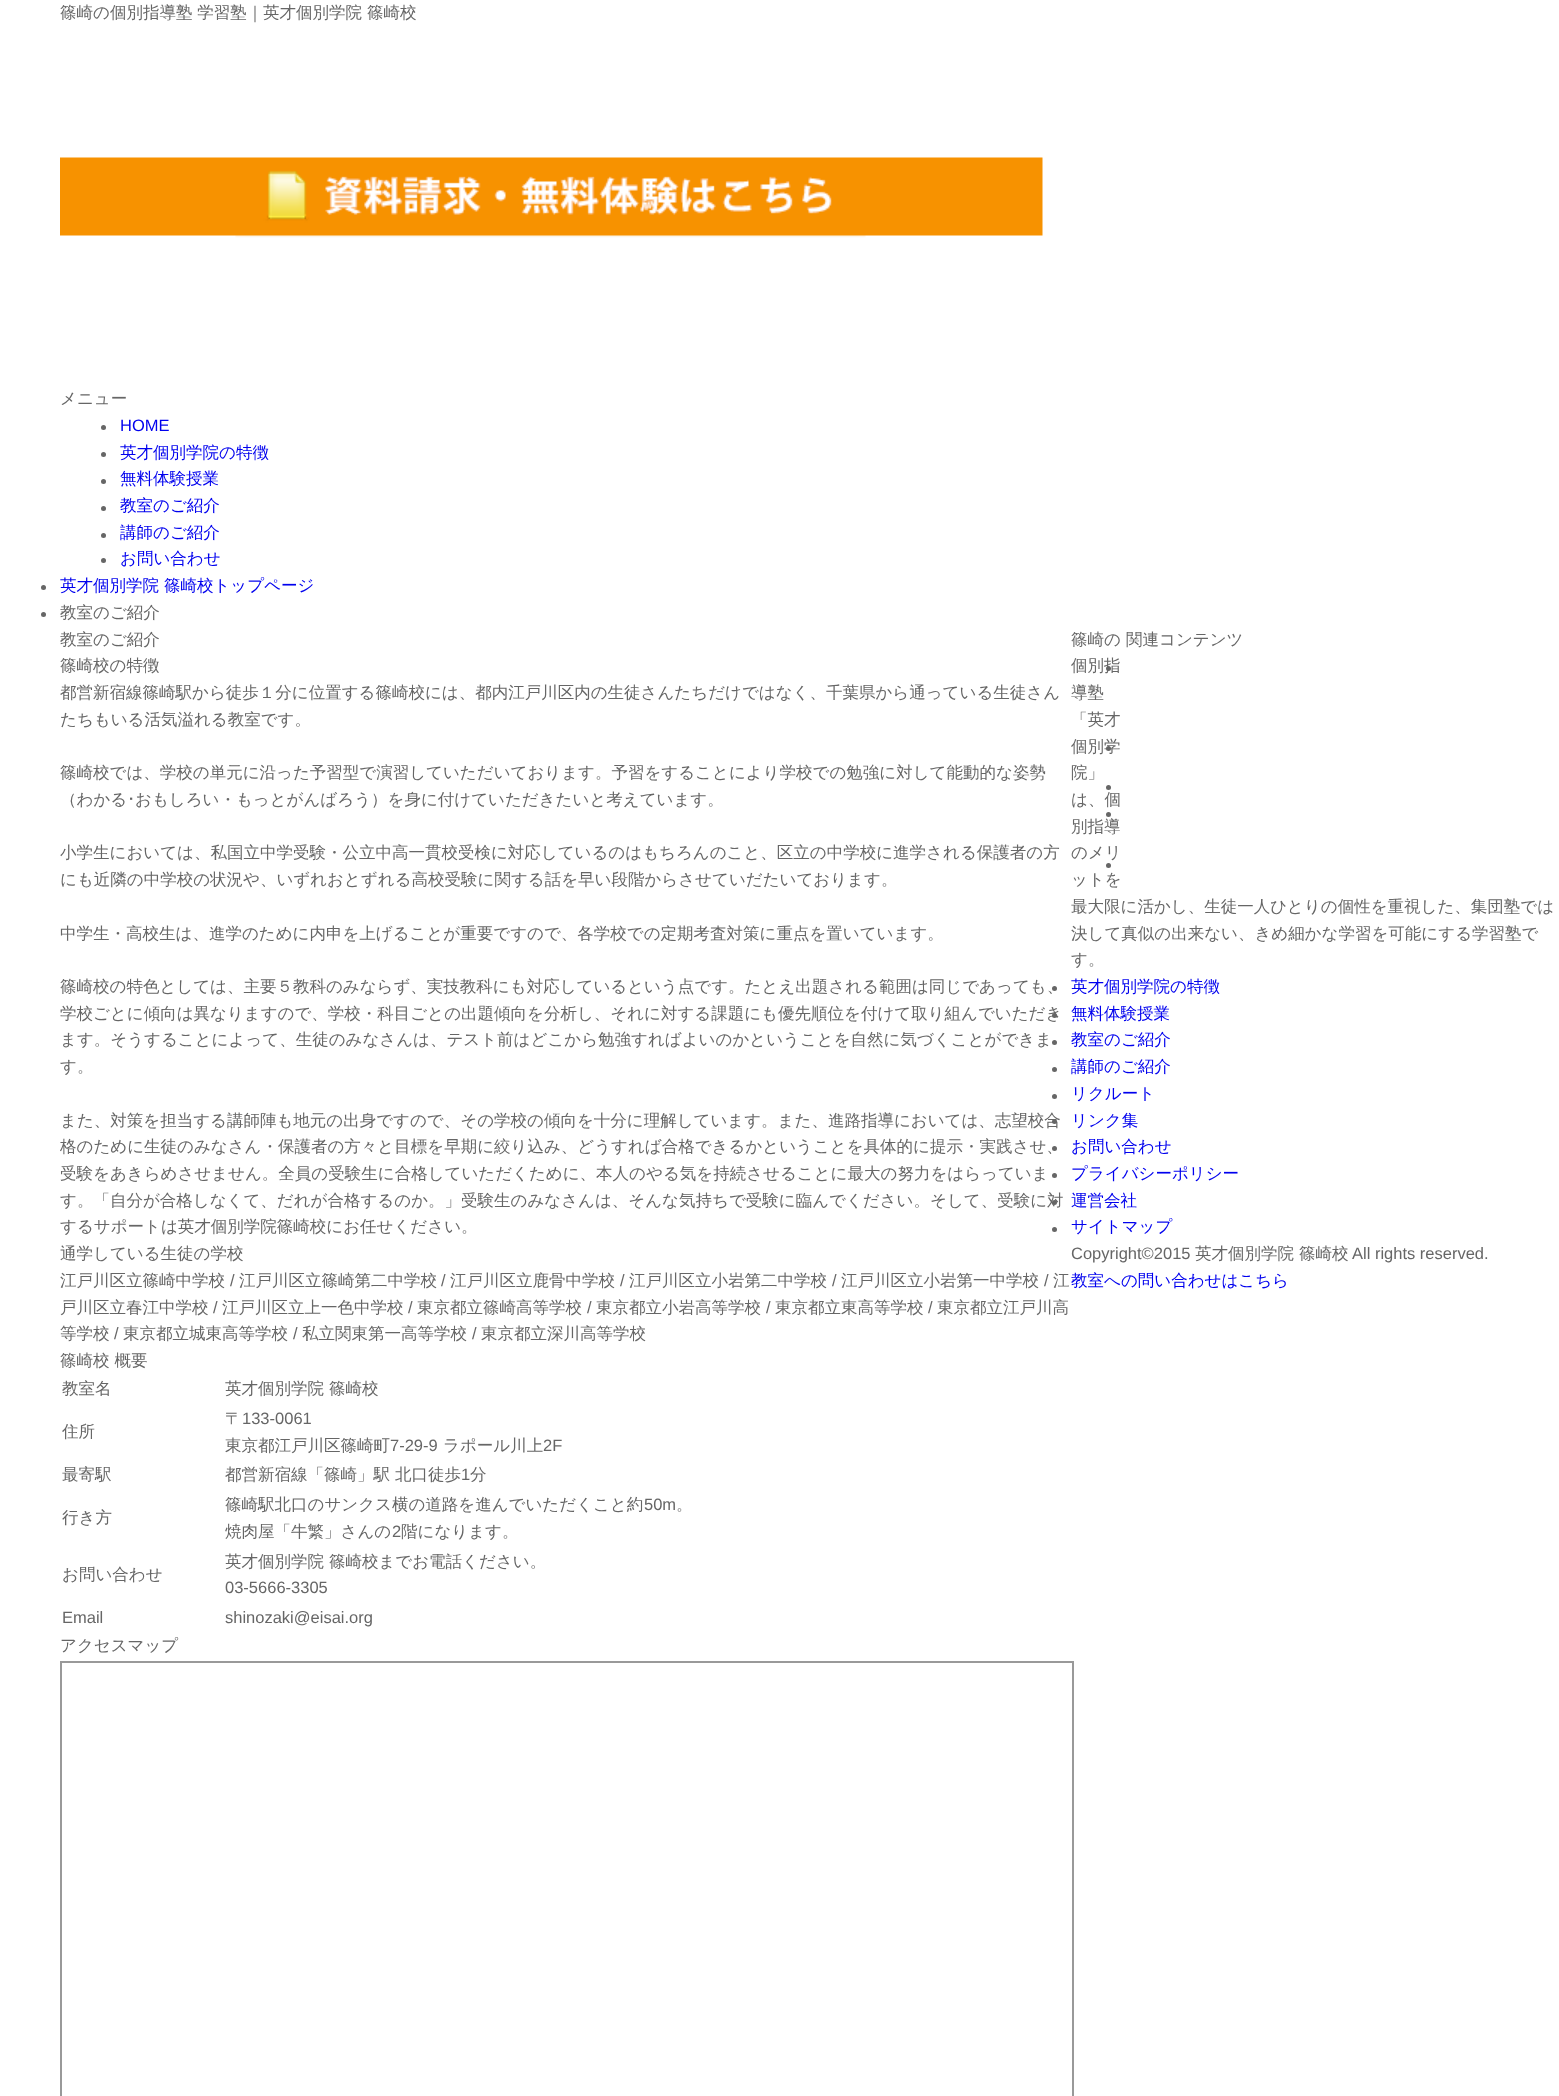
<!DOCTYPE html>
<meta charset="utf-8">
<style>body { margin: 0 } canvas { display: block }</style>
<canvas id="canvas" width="1559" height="2096"></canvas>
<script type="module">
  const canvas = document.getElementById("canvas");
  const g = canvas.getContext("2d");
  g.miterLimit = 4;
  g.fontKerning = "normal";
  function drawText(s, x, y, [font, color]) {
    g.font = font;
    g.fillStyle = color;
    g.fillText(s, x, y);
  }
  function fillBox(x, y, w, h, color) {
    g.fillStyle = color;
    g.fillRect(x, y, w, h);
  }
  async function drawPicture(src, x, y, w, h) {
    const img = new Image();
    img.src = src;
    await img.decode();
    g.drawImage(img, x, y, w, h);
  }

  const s1 = ["500 16.5px WenQuanYi Zen Hei", "#666666"];
  const s2 = ["16.5px Liberation Sans", "#0000EE"];
  const s3 = ["500 16.5px WenQuanYi Zen Hei", "#0000EE"];
  const s4 = ["16.5px IPAPGothic", "#666666"];
  const s5 = ["16.5px Liberation Sans", "#666666"];

  fillBox(0, 0, 1559, 2096, "#FFFFFF");
  drawText("篠崎の個別指導塾 学習塾｜英才個別学院 篠崎校", 60, 18, s1);
  await drawPicture("pic1.png", 60, 157, 983, 81);
  drawText("メニュー", 60, 404, s1);
  g.beginPath();
  g.arc(103.5, 427.5, 2.5, 0, Math.PI * 2);
  g.fill();
  drawText("HOME", 120, 431, s2);
  g.fillStyle = "#666666";
  g.beginPath();
  g.arc(103.5, 454.5, 2.5, 0, Math.PI * 2);
  g.fill();
  drawText("英才個別学院の特徴", 120, 458, s3);
  g.fillStyle = "#666666";
  g.beginPath();
  g.arc(103.5, 481.5, 2.5, 0, Math.PI * 2);
  g.fill();
  drawText("無料体験授業", 120, 484, s3);
  g.fillStyle = "#666666";
  g.beginPath();
  g.arc(103.5, 508.5, 2.5, 0, Math.PI * 2);
  g.fill();
  drawText("教室のご紹介", 120, 511, s3);
  g.fillStyle = "#666666";
  g.beginPath();
  g.arc(103.5, 535.5, 2.5, 0, Math.PI * 2);
  g.fill();
  drawText("講師のご紹介", 120, 538, s3);
  g.fillStyle = "#666666";
  g.beginPath();
  g.arc(103.5, 560.5, 2.5, 0, Math.PI * 2);
  g.fill();
  drawText("お問い合わせ", 120, 564, s3);
  g.fillStyle = "#666666";
  g.beginPath();
  g.arc(43.5, 587.5, 2.5, 0, Math.PI * 2);
  g.fill();
  drawText("英才個別学院 篠崎校トップページ", 60, 591, s3);
  g.fillStyle = "#666666";
  g.beginPath();
  g.arc(43.5, 614.5, 2.5, 0, Math.PI * 2);
  g.fill();
  drawText("教室のご紹介", 60, 618, s1);
  drawText("教室のご紹介", 60, 645, s1);
  drawText("篠崎校の特徴", 60, 671, s1);
  drawText("都営新宿線篠崎駅から徒歩１分に位置する篠崎校には、都内江戸川区内の生徒さんたちだけではなく、千葉県から通っている生徒さん", 60, 698, s1);
  drawText("たちもいる活気溢れる教室です。", 60, 725, s1);
  drawText("篠崎校では、学校の単元に沿った予習型で演習していただいております。予習をすることにより学校での勉強に対して能動的な姿勢", 60, 778, s1);
  drawText("（わかる", 60, 805, s1);
  drawText("･", 127, 805, s4);
  drawText("おもしろい・もっとがんばろう）を身に付けていただきたいと考えています。", 135, 805, s1);
  drawText("小学生においては、私国立中学受験・公立中高一貫校受検に対応しているのはもちろんのこと、区立の中学校に進学される保護者の方", 60, 858, s1);
  drawText("にも近隣の中学校の状況や、いずれおとずれる高校受験に関する話を早い段階からさせていだたいております。", 60, 885, s1);
  drawText("中学生・高校生は、進学のために内申を上げることが重要ですので、各学校での定期考査対策に重点を置いています。", 60, 939, s1);
  drawText("篠崎校の特色としては、主要５教科のみならず、実技教科にも対応しているという点です。たとえ出題される範囲は同じであっても、", 60, 992, s1);
  drawText("学校ごとに傾向は異なりますので、学校・科目ごとの出題傾向を分析し、それに対する課題にも優先順位を付けて取り組んでいただき", 60, 1019, s1);
  drawText("ます。そうすることによって、生徒のみなさんは、テスト前はどこから勉強すればよいのかということを自然に気づくことができま", 60, 1045, s1);
  drawText("す。", 60, 1072, s1);
  drawText("また、対策を担当する講師陣も地元の出身ですので、その学校の傾向を十分に理解しています。また、進路指導においては、志望校合", 60, 1126, s1);
  drawText("格のために生徒のみなさん・保護者の方々と目標を早期に絞り込み、どうすれば合格できるかということを具体的に提示・実践させ、", 60, 1152, s1);
  drawText("受験をあきらめさせません。全員の受験生に合格していただくために、本人のやる気を持続させることに最大の努力をはらっていま", 60, 1179, s1);
  drawText("す。「自分が合格しなくて、だれが合格するのか。」受験生のみなさんは、そんな気持ちで受験に臨んでください。そして、受験に対", 60, 1206, s1);
  drawText("するサポートは英才個別学院篠崎校にお任せください。", 60, 1232, s1);
  drawText("通学している生徒の学校", 60, 1259, s1);
  drawText("江戸川区立篠崎中学校", 60, 1286, s1);
  drawText("/", 230, 1286, s5);
  drawText("江戸川区立篠崎第二中学校", 239, 1286, s1);
  drawText("/", 441, 1286, s5);
  drawText("江戸川区立鹿骨中学校", 450, 1286, s1);
  drawText("/", 620, 1286, s5);
  drawText("江戸川区立小岩第二中学校", 629, 1286, s1);
  drawText("/", 832, 1286, s5);
  drawText("江戸川区立小岩第一中学校", 841, 1286, s1);
  drawText("/", 1044, 1286, s5);
  drawText("江", 1053, 1286, s1);
  drawText("戸川区立春江中学校", 60, 1313, s1);
  drawText("/", 213, 1313, s5);
  drawText("江戸川区立上一色中学校", 222, 1313, s1);
  drawText("/", 408, 1313, s5);
  drawText("東京都立篠崎高等学校", 417, 1313, s1);
  drawText("/", 587, 1313, s5);
  drawText("東京都立小岩高等学校", 596, 1313, s1);
  drawText("/", 766, 1313, s5);
  drawText("東京都立東高等学校", 775, 1313, s1);
  drawText("/", 928, 1313, s5);
  drawText("東京都立江戸川高", 937, 1313, s1);
  drawText("等学校", 60, 1339, s1);
  drawText("/", 114, 1339, s5);
  drawText("東京都立城東高等学校", 123, 1339, s1);
  drawText("/", 293, 1339, s5);
  drawText("私立関東第一高等学校", 302, 1339, s1);
  drawText("/", 472, 1339, s5);
  drawText("東京都立深川高等学校", 481, 1339, s1);
  drawText("篠崎校 概要", 60, 1366, s1);
  drawText("教室名", 62, 1394, s1);
  drawText("英才個別学院 篠崎校", 225, 1394, s1);
  drawText("住所", 62, 1437, s1);
  drawText("〒", 225, 1424, s1);
  drawText("133-0061", 242, 1424, s5);
  drawText("東京都江戸川区篠崎町", 225, 1451, s1);
  drawText("7-29-9", 390, 1451, s5);
  drawText("ラポール川上", 443, 1451, s1);
  drawText("2F", 543, 1451, s5);
  drawText("最寄駅", 62, 1480, s1);
  drawText("都営新宿線「篠崎」駅 北口徒歩", 225, 1480, s1);
  drawText("1", 461, 1480, s5);
  drawText("分", 470, 1480, s1);
  drawText("行き方", 62, 1523, s1);
  drawText("篠崎駅北口のサンクス横の道路を進んでいただくこと約", 225, 1510, s1);
  drawText("50m", 644, 1510, s5);
  drawText("。", 676, 1510, s1);
  drawText("焼肉屋「牛繁」さんの", 225, 1537, s1);
  drawText("2", 392, 1537, s5);
  drawText("階になります。", 401, 1537, s1);
  drawText("お問い合わせ", 62, 1580, s1);
  drawText("英才個別学院 篠崎校までお電話ください。", 225, 1567, s1);
  drawText("03-5666-3305", 225, 1593, s5);
  drawText("Email", 62, 1623, s5);
  drawText("shinozaki@eisai.org", 225, 1623, s5);
  drawText("アクセスマップ", 60, 1651, s1);
  g.strokeStyle = "#999999";
  g.lineWidth = 2;
  g.strokeRect(61, 1662, 1012, 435);
  drawText("関連コンテンツ", 1126, 645, s1);
  g.beginPath();
  g.arc(1108.5, 668.5, 2.5, 0, Math.PI * 2);
  g.fill();
  g.beginPath();
  g.arc(1108.5, 748.5, 2.5, 0, Math.PI * 2);
  g.fill();
  g.beginPath();
  g.arc(1108.5, 787.5, 2.5, 0, Math.PI * 2);
  g.fill();
  g.beginPath();
  g.arc(1108.5, 814.5, 2.5, 0, Math.PI * 2);
  g.fill();
  g.beginPath();
  g.arc(1108.5, 865.5, 2.5, 0, Math.PI * 2);
  g.fill();
  drawText("篠崎の", 1071, 645, s1);
  drawText("個別指", 1071, 671, s1);
  drawText("導塾", 1071, 698, s1);
  drawText("「英才", 1071, 725, s1);
  drawText("個別学", 1071, 752, s1);
  drawText("院」", 1071, 778, s1);
  drawText("は、個", 1071, 805, s1);
  drawText("別指導", 1071, 832, s1);
  drawText("のメリ", 1071, 858, s1);
  drawText("ットを", 1071, 885, s1);
  drawText("最大限に活かし、生徒一人ひとりの個性を重視した、集団塾では", 1071, 912, s1);
  drawText("決して真似の出来ない、きめ細かな学習を可能にする学習塾で", 1071, 939, s1);
  drawText("す。", 1071, 965, s1);
  g.beginPath();
  g.arc(1054.5, 988.5, 2.5, 0, Math.PI * 2);
  g.fill();
  drawText("英才個別学院の特徴", 1071, 992, s3);
  g.fillStyle = "#666666";
  g.beginPath();
  g.arc(1054.5, 1015.5, 2.5, 0, Math.PI * 2);
  g.fill();
  drawText("無料体験授業", 1071, 1019, s3);
  g.fillStyle = "#666666";
  g.beginPath();
  g.arc(1054.5, 1042.5, 2.5, 0, Math.PI * 2);
  g.fill();
  drawText("教室のご紹介", 1071, 1045, s3);
  g.fillStyle = "#666666";
  g.beginPath();
  g.arc(1054.5, 1069.5, 2.5, 0, Math.PI * 2);
  g.fill();
  drawText("講師のご紹介", 1071, 1072, s3);
  g.fillStyle = "#666666";
  g.beginPath();
  g.arc(1054.5, 1096.5, 2.5, 0, Math.PI * 2);
  g.fill();
  drawText("リクルート", 1071, 1099, s3);
  g.fillStyle = "#666666";
  g.beginPath();
  g.arc(1054.5, 1121.5, 2.5, 0, Math.PI * 2);
  g.fill();
  drawText("リンク集", 1071, 1126, s3);
  g.fillStyle = "#666666";
  g.beginPath();
  g.arc(1054.5, 1148.5, 2.5, 0, Math.PI * 2);
  g.fill();
  drawText("お問い合わせ", 1071, 1152, s3);
  g.fillStyle = "#666666";
  g.beginPath();
  g.arc(1054.5, 1175.5, 2.5, 0, Math.PI * 2);
  g.fill();
  drawText("プライバシーポリシー", 1071, 1179, s3);
  g.fillStyle = "#666666";
  g.beginPath();
  g.arc(1054.5, 1202.5, 2.5, 0, Math.PI * 2);
  g.fill();
  drawText("運営会社", 1071, 1206, s3);
  g.fillStyle = "#666666";
  g.beginPath();
  g.arc(1054.5, 1229.5, 2.5, 0, Math.PI * 2);
  g.fill();
  drawText("サイトマップ", 1071, 1232, s3);
  drawText("Copyright©2015", 1071, 1259, s5);
  drawText("英才個別学院 篠崎校", 1195, 1259, s1);
  drawText("All rights reserved.", 1352, 1259, s5);
  drawText("教室への問い合わせはこちら", 1071, 1286, s3);
</script>
